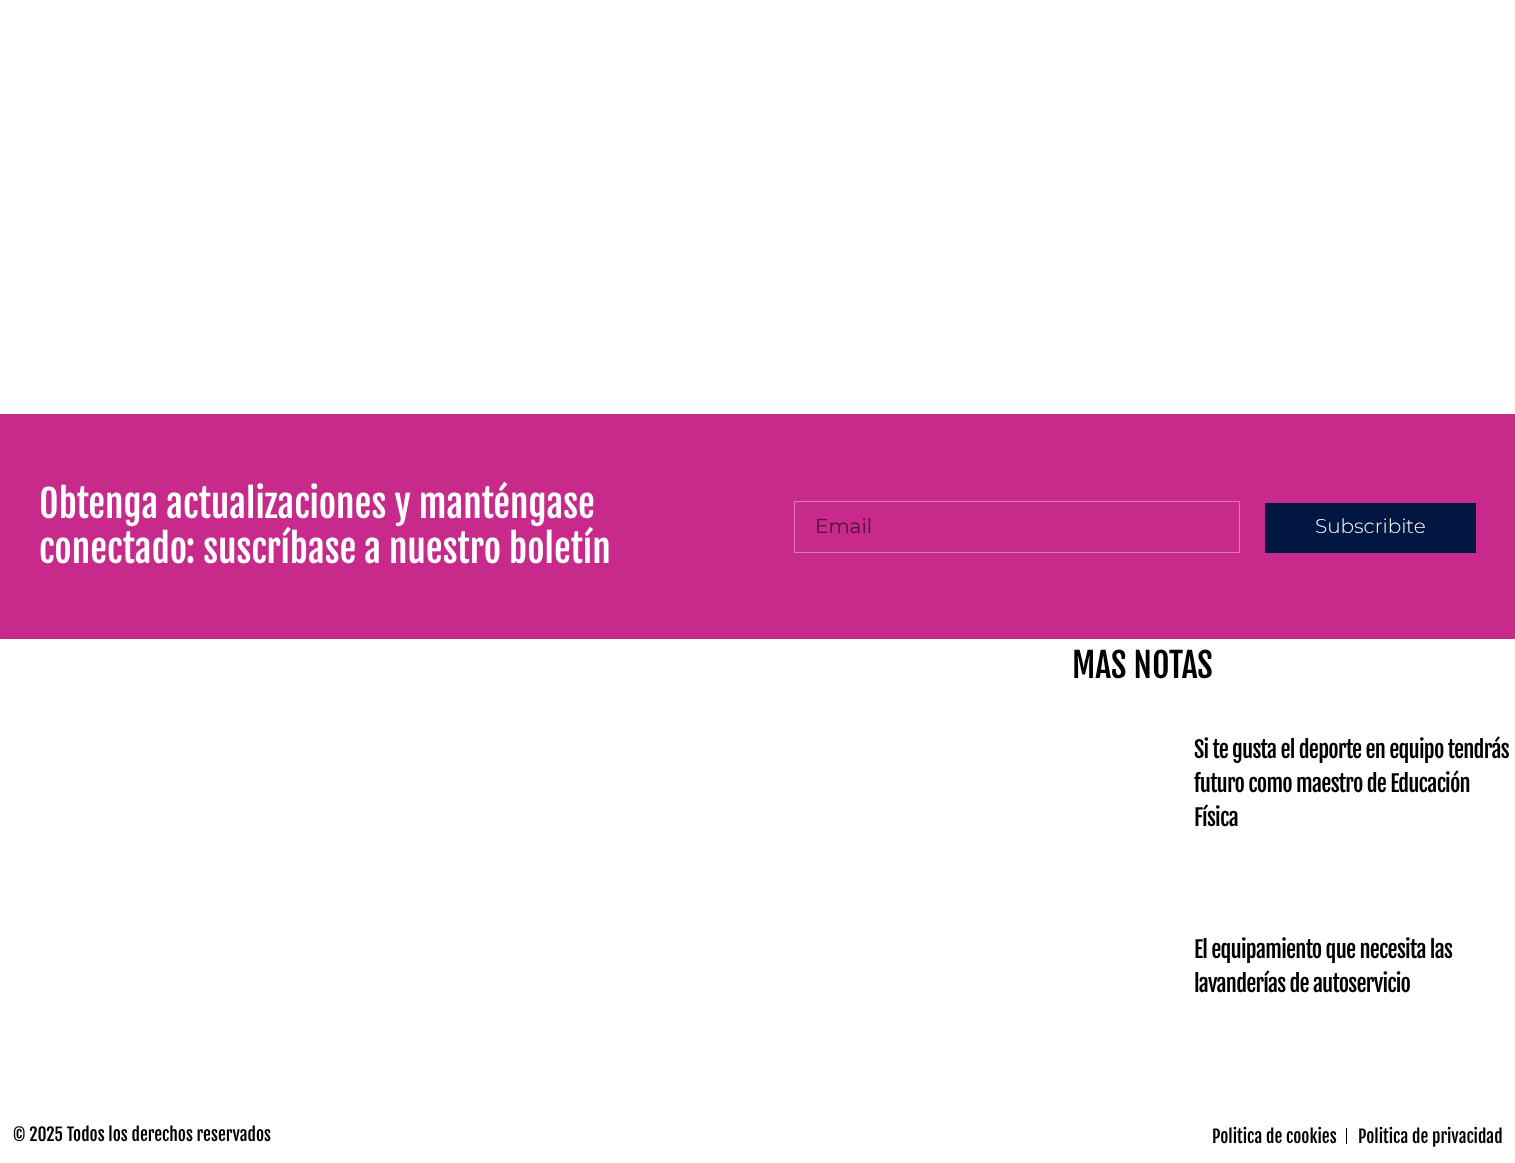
<!DOCTYPE html>
<meta charset="utf-8">
<style>body { margin: 0 } canvas { display: block }</style>
<canvas id="canvas" width="1515" height="1163"></canvas>
<script type="module">
  const canvas = document.getElementById("canvas");
  const g = canvas.getContext("2d");
  g.miterLimit = 4;
  g.fontKerning = "normal";
  function drawText(s, x, y, [font, color]) {
    g.font = font;
    g.fillStyle = color;
    g.fillText(s, x, y);
  }
  function fillBox(x, y, w, h, color) {
    g.fillStyle = color;
    g.fillRect(x, y, w, h);
  }

  const s1 = ["37.5px Fjalla One", "#FFFFFF"];
  const s2 = ["20px Montserrat", "#501138"];
  const s3 = ["300 20px Montserrat", "#FFFFFF"];
  const s4 = ["33.75px Fjalla One", "#000000"];
  const s5 = ["22.5px Fjalla One", "#000000"];
  const s6 = ["17.5px Fjalla One", "#000000"];

  fillBox(0, 0, 1515, 1163, "#FFFFFF");
  fillBox(0, 414, 1515, 225, "#C72A8B");
  drawText("Obtenga actualizaciones y manténgase", 39, 518, s1);
  drawText("conectado: suscríbase a nuestro boletín", 39, 563, s1);
  g.strokeStyle = "#DC79B6";
  g.strokeRect(794.5, 501.5, 445, 51);
  drawText("Email", 815, 533, s2);
  fillBox(1265, 503, 211, 50, "#011640");
  drawText("Subscribite", 1315, 533, s3);
  fillBox(1514, 639, 1, 470, "#FFFDFC");
  fillBox(0, 639, 1, 470, "#FFFDFC");
  drawText("MAS NOTAS", 1072, 678, s4);
  g.letterSpacing = "-0.75px";
  drawText("Si te gusta el deporte en equipo tendrás", 1194, 758, s5);
  drawText("futuro como maestro de Educación", 1194, 792, s5);
  drawText("Física", 1194, 826, s5);
  drawText("El equipamiento que necesita las", 1194, 958, s5);
  drawText("lavanderías de autoservicio", 1194, 992, s5);
  g.letterSpacing = "0px";
  drawText("© 2025 Todos los derechos reservados", 13, 1141, s6);
  drawText("Politica de cookies", 1212, 1143, s6);
  fillBox(1346, 1128, 1, 16, "#000000");
  drawText("Politica de privacidad", 1358, 1143, s6);
</script>
